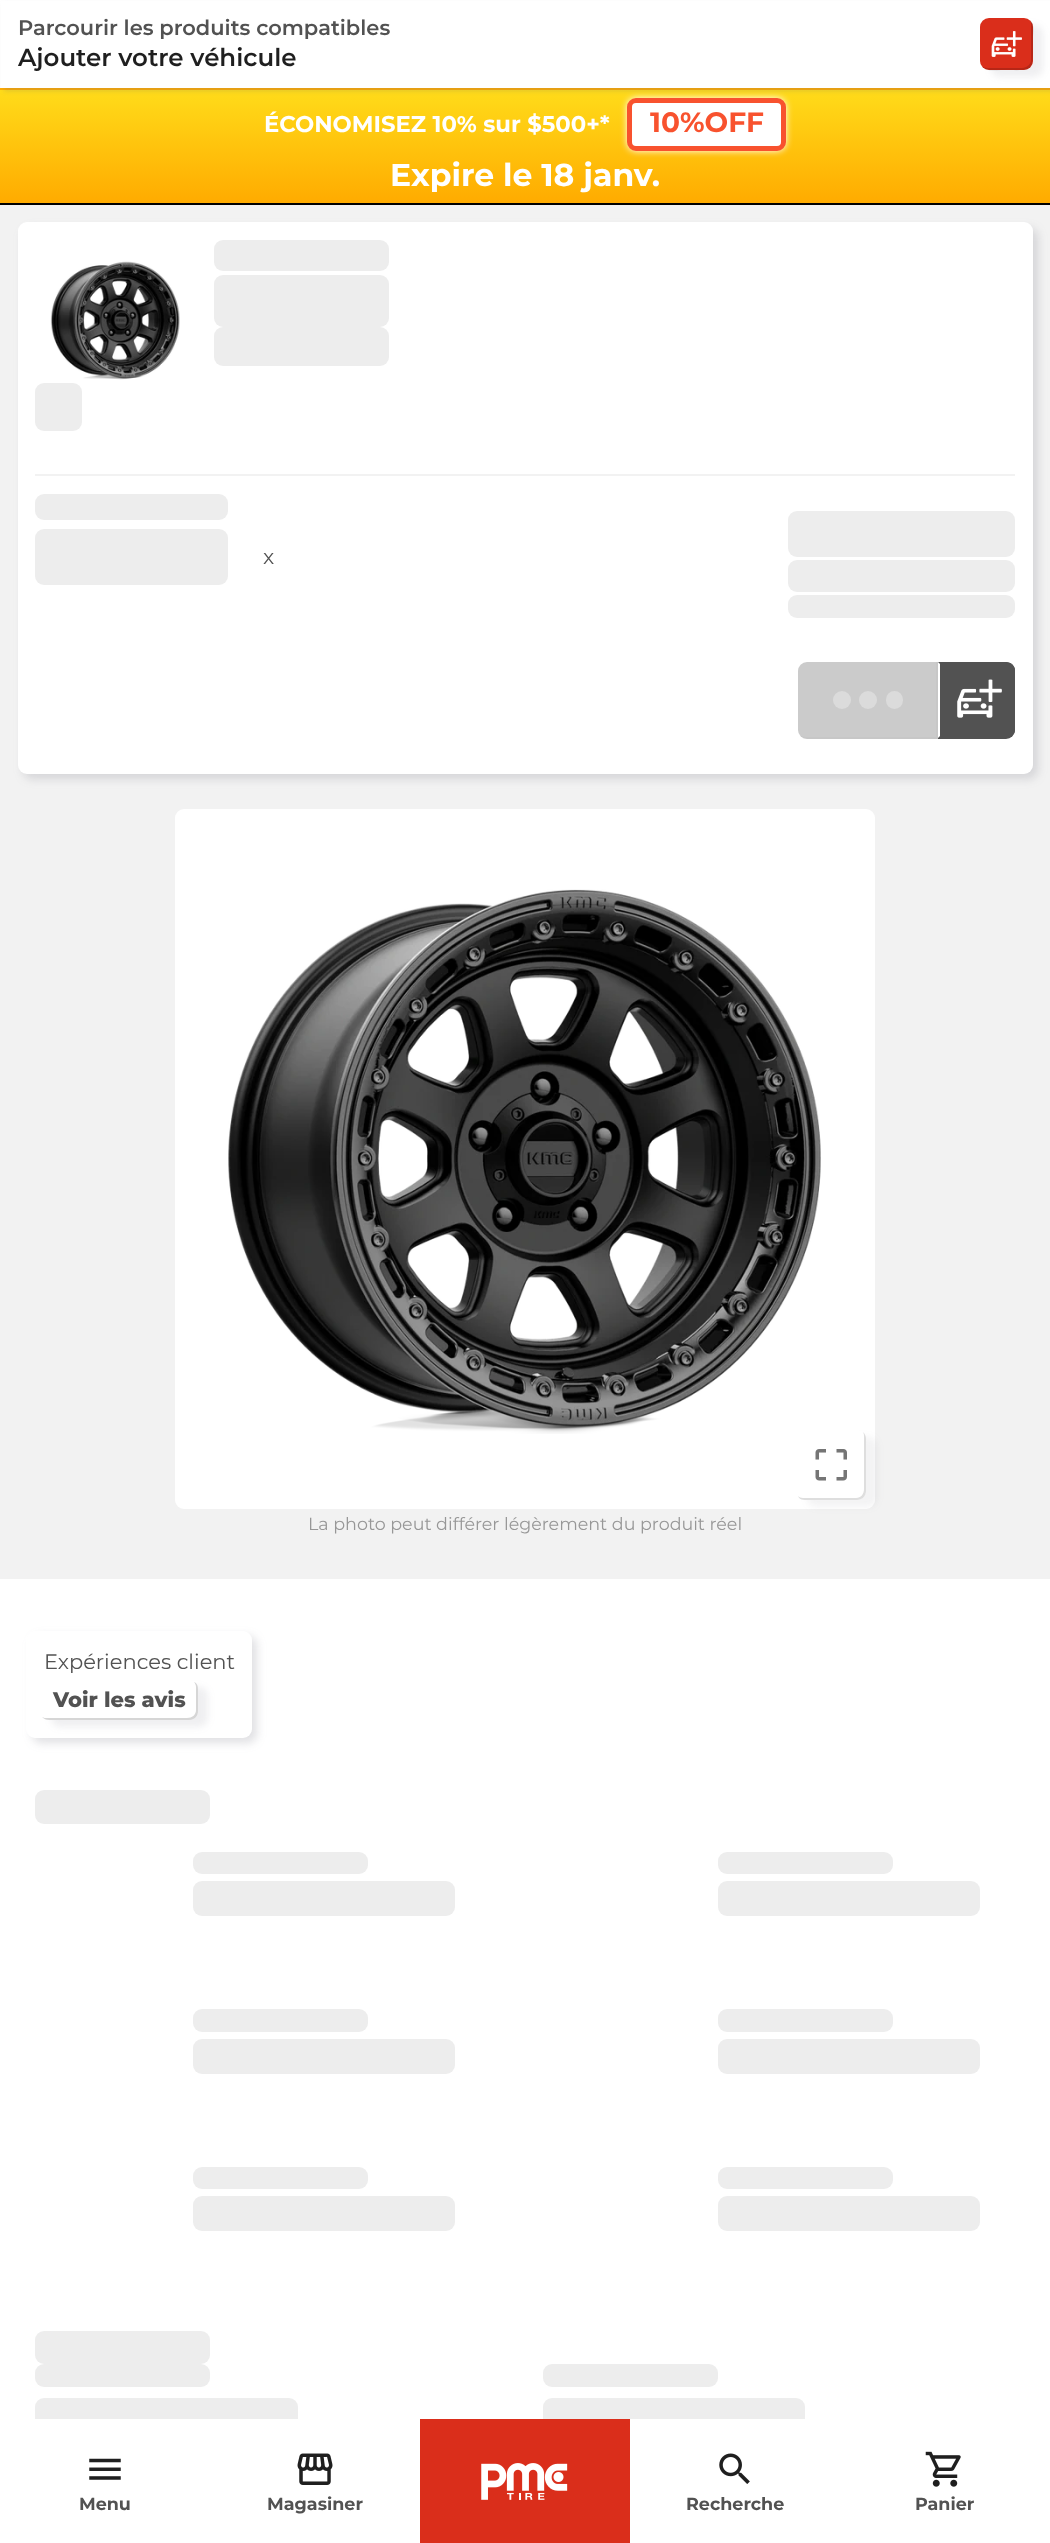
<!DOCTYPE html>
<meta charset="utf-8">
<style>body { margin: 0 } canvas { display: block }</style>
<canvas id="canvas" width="1050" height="2543"></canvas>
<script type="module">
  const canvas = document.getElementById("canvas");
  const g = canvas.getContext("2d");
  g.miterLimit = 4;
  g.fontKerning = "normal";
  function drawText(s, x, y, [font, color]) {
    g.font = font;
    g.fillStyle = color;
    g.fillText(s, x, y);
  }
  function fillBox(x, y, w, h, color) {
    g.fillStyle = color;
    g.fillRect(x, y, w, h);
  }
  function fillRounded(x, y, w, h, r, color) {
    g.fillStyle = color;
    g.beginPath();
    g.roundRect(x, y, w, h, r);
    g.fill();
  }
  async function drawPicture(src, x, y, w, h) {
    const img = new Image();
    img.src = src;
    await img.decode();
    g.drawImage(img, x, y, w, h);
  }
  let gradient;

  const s1 = ["600 21px Montserrat", "#525252"];
  const s2 = ["600 24.5px Montserrat", "#1F1F1F"];
  const s3 = ["21px Montserrat", "#525252"];
  const s4 = ["17.5px Montserrat", "#979797"];
  const s5 = ["800 21px Montserrat", "#525252"];
  const s6 = ["bold 22.75px Montserrat", "#FFFFFF"];
  const s7 = ["bold 28px Montserrat", "#F8522E"];
  const s8 = ["bold 31.5px Montserrat", "#FFFFFF"];
  const s9 = ["bold 17.5px Montserrat", "#525252"];

  fillBox(0, 0, 1050, 2543, "#FFFFFF");
  gradient = g.createLinearGradient(525, 89, 525, 203);
  gradient.addColorStop(0, "#FFDC1A");
  gradient.addColorStop(1, "#FFAB00");
  g.fillStyle = gradient;
  g.fillRect(0, 90, 1050, 113);
  fillBox(0, 88, 1050, 2, "#FFAB00");
  g.fillStyle = "#FFFFFF";
  g.filter = "blur(3.5px)";
  g.beginPath();
  g.roundRect(627, 98, 159, 53, 9);
  g.fill();
  g.filter = "none";
  g.beginPath();
  g.roundRect(629.5, 100.5, 154, 48, 6.5);
  g.fill();
  g.strokeStyle = "#F8522E";
  g.lineWidth = 5;
  g.stroke();
  g.fillStyle = "rgba(100, 101, 114, 0.2)";
  g.filter = "blur(2.5px)";
  g.beginPath();
  g.rect(4, 4, 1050, 87);
  g.fill();
  g.filter = "none";
  fillBox(1, 1, 1049, 87, "#FFFFFF");
  drawText("Parcourir les produits compatibles", 18, 35, s1);
  drawText("Ajouter votre véhicule", 18, 66, s2);
  g.fillStyle = "rgba(100, 101, 114, 0.1)";
  g.filter = "blur(3.5px)";
  g.beginPath();
  g.roundRect(991, 25, 52, 52, 9);
  g.fill();
  g.filter = "none";
  fillRounded(980, 18, 53, 52, 9, "#DA2E1B");
  g.fillStyle = "rgba(0, 0, 0, 0.16)";
  g.beginPath();
  g.moveTo(982, 66);
  g.bezierCurveTo(986, 72, 995, 70, 1001, 70);
  g.bezierCurveTo(1036, 70, 1033, 74, 1033, 38);
  g.bezierCurveTo(1033, 33, 1035, 24, 1030, 20);
  g.bezierCurveTo(1031, 21, 1031, 23, 1031, 24);
  g.lineTo(1031, 60);
  g.bezierCurveTo(1031, 64, 1027, 68, 1022, 68);
  g.lineTo(987, 68);
  g.bezierCurveTo(985, 68, 983, 67, 982, 66);
  g.closePath();
  g.fill();
  await drawPicture("pic1.png", 991, 31, 31, 26);
  fillBox(0, 205, 1050, 1374, "#F2F2F2");
  g.fillStyle = "rgba(100, 101, 114, 0.2)";
  g.filter = "blur(5px)";
  g.beginPath();
  g.roundRect(23, 228, 1015, 551, 9);
  g.fill();
  g.filter = "none";
  fillRounded(18, 222, 1015, 552, 9, "#FFFFFF");
  await drawPicture("pic2.png", 50, 261, 130, 119);
  fillRounded(214, 240, 175, 31, 9, "#EDEDED");
  fillRounded(214, 275, 175, 52, 9, "#EDEDED");
  fillRounded(214, 327, 175, 39, 9, "#EDEDED");
  fillRounded(35, 383, 47, 48, 9, "#EDEDED");
  fillBox(35, 474, 980, 2, "#F2F2F2");
  fillRounded(35, 494, 193, 26, 9, "#EDEDED");
  fillRounded(35, 529, 193, 56, 9, "#EDEDED");
  drawText("x", 263, 564, s3);
  fillRounded(788, 511, 227, 46, 9, "#EDEDED");
  fillRounded(788, 560, 227, 32, 9, "#EDEDED");
  fillRounded(788, 595, 227, 23, 9, "#EDEDED");
  g.fillStyle = "#CBCBCB";
  g.beginPath();
  g.roundRect(798, 662, 140, 77, [9, 0, 0, 9]);
  g.fill();
  g.fillStyle = "rgba(179, 179, 179, 0.16)";
  g.beginPath();
  g.moveTo(800, 735);
  g.bezierCurveTo(801, 738, 804, 739, 807, 739);
  g.lineTo(938, 739);
  g.lineTo(938, 662);
  g.lineTo(936, 662);
  g.lineTo(936, 737);
  g.lineTo(805, 737);
  g.bezierCurveTo(803, 737, 801, 736, 800, 735);
  g.closePath();
  g.fill();
  g.fillStyle = "#DBDBDB";
  g.beginPath();
  g.arc(868, 700, 9, 0, Math.PI * 2);
  g.fill();
  g.beginPath();
  g.arc(842, 700, 9, 0, Math.PI * 2);
  g.fill();
  fillRounded(886, 691, 17, 18, 8.5, "#DBDBDB");
  g.fillStyle = "#525252";
  g.beginPath();
  g.roundRect(938, 662, 77, 77, [0, 9, 9, 0]);
  g.fill();
  g.beginPath();
  g.moveTo(940, 663);
  g.lineTo(1006, 663);
  g.bezierCurveTo(1008, 663, 1010, 664, 1011, 665);
  g.lineTo(1012, 664);
  g.bezierCurveTo(1011, 663, 1008, 662, 1006, 662);
  g.lineTo(938, 662);
  g.lineTo(940, 664);
  g.closePath();
  g.fill();
  g.beginPath();
  g.moveTo(1012, 664);
  g.bezierCurveTo(1014, 666, 1015, 668, 1015, 670);
  g.lineTo(1015, 730);
  g.bezierCurveTo(1015, 732, 1014, 734, 1012, 736);
  g.lineTo(1011, 735);
  g.bezierCurveTo(1012, 734, 1013, 732, 1013, 730);
  g.lineTo(1013, 670);
  g.bezierCurveTo(1013, 668, 1012, 666, 1011, 665);
  g.closePath();
  g.fill();
  g.beginPath();
  g.moveTo(1012, 736);
  g.bezierCurveTo(1011, 737, 1008, 738, 1006, 738);
  g.lineTo(938, 738);
  g.lineTo(940, 736);
  g.lineTo(940, 737);
  g.lineTo(1006, 737);
  g.bezierCurveTo(1008, 737, 1010, 736, 1011, 735);
  g.closePath();
  g.fill();
  g.fillStyle = "#FFFFFF";
  g.beginPath();
  g.moveTo(938, 662);
  g.lineTo(940, 664);
  g.lineTo(940, 736);
  g.lineTo(938, 738);
  g.closePath();
  g.fill();
  await drawPicture("pic3.png", 957, 679, 45, 39);
  fillRounded(175, 809, 700, 700, 9, "#FFFFFF");
  await drawPicture("pic4.png", 228, 889, 593, 545);
  g.fillStyle = "rgba(100, 101, 114, 0.08)";
  g.filter = "blur(3.5px)";
  g.beginPath();
  g.roundRect(807, 1437, 70, 70, 9);
  g.fill();
  g.filter = "none";
  fillRounded(796, 1430, 70, 70, 9, "#FFFFFF");
  g.fillStyle = "#DEDEDE";
  g.beginPath();
  g.moveTo(798, 1496);
  g.bezierCurveTo(799, 1499, 802, 1500, 805, 1500);
  g.lineTo(857, 1500);
  g.bezierCurveTo(862, 1500, 866, 1496, 866, 1491);
  g.lineTo(866, 1439);
  g.bezierCurveTo(866, 1436, 865, 1434, 863, 1432);
  g.bezierCurveTo(864, 1434, 864, 1435, 864, 1437);
  g.lineTo(864, 1489);
  g.bezierCurveTo(864, 1494, 861, 1498, 856, 1498);
  g.lineTo(803, 1498);
  g.bezierCurveTo(801, 1498, 799, 1497, 798, 1496);
  g.closePath();
  g.fill();
  await drawPicture("pic5.png", 815, 1449, 32, 32);
  drawText("La photo peut différer légèrement du produit réel", 308, 1530, s4);
  g.fillStyle = "rgba(100, 101, 114, 0.2)";
  g.filter = "blur(5px)";
  g.beginPath();
  g.roundRect(32, 1636, 225, 107, 9);
  g.fill();
  g.filter = "none";
  fillRounded(26, 1631, 226, 107, 9, "#FFFFFF");
  drawText("Expériences client", 44, 1669, s3);
  g.fillStyle = "rgba(100, 101, 114, 0.1)";
  g.filter = "blur(3.5px)";
  g.beginPath();
  g.roundRect(51, 1687, 157, 40, 9);
  g.fill();
  g.filter = "none";
  fillRounded(40, 1680, 158, 40, 9, "#FFFFFF");
  g.fillStyle = "rgba(0, 0, 0, 0.16)";
  g.beginPath();
  g.moveTo(42, 1717);
  g.bezierCurveTo(44, 1719, 46, 1720, 49, 1720);
  g.lineTo(189, 1720);
  g.bezierCurveTo(194, 1720, 198, 1716, 198, 1711);
  g.lineTo(198, 1689);
  g.bezierCurveTo(198, 1686, 197, 1683, 194, 1682);
  g.bezierCurveTo(195, 1683, 196, 1685, 196, 1687);
  g.lineTo(196, 1710);
  g.bezierCurveTo(196, 1715, 192, 1718, 187, 1718);
  g.lineTo(47, 1718);
  g.bezierCurveTo(45, 1718, 44, 1718, 42, 1717);
  g.closePath();
  g.fill();
  drawText("Voir les avis", 53, 1707, s5);
  fillRounded(35, 1790, 175, 34, 9, "#EDEDED");
  fillRounded(193, 1852, 175, 22, 9, "#EDEDED");
  fillRounded(193, 1881, 262, 35, 9, "#EDEDED");
  fillRounded(718, 1852, 175, 22, 9, "#EDEDED");
  fillRounded(718, 1881, 262, 35, 9, "#EDEDED");
  fillRounded(193, 2009, 175, 23, 9, "#EDEDED");
  fillRounded(193, 2039, 262, 35, 9, "#EDEDED");
  fillRounded(718, 2009, 175, 23, 9, "#EDEDED");
  fillRounded(718, 2039, 262, 35, 9, "#EDEDED");
  fillRounded(193, 2167, 175, 22, 9, "#EDEDED");
  fillRounded(193, 2196, 262, 35, 9, "#EDEDED");
  fillRounded(718, 2167, 175, 22, 9, "#EDEDED");
  fillRounded(718, 2196, 262, 35, 9, "#EDEDED");
  fillRounded(35, 2331, 175, 33, 9, "#EDEDED");
  fillRounded(35, 2364, 175, 23, 9, "#EDEDED");
  fillRounded(35, 2398, 263, 35, 9, "#EDEDED");
  fillRounded(543, 2364, 175, 23, 9, "#EDEDED");
  fillRounded(543, 2398, 262, 35, 9, "#EDEDED");
  fillBox(0, 203, 1050, 2, "#000000");
  drawText("ÉCONOMISEZ 10% sur $500+*", 264, 132, s6);
  drawText("10%OFF", 650, 132, s7);
  drawText("Expire le 18 janv.", 390, 186, s8);
  fillBox(35, 2419, 263, 14, "#FFFFFF");
  await drawPicture("pic6.png", 89, 2458, 32, 22);
  drawText("Menu", 79, 2510, s9);
  await drawPicture("pic7.png", 297, 2453, 36, 32);
  drawText("Magasiner", 267, 2510, s9);
  fillBox(420, 2419, 210, 124, "#DA2E1B");
  await drawPicture("pic8.png", 481, 2463, 87, 37);
  fillBox(630, 2419, 175, 14, "#FFFFFF");
  await drawPicture("pic9.png", 719, 2453, 31, 31);
  drawText("Recherche", 686, 2510, s9);
  await drawPicture("pic10.png", 925, 2451, 36, 36);
  drawText("Panier", 915, 2510, s9);
</script>
